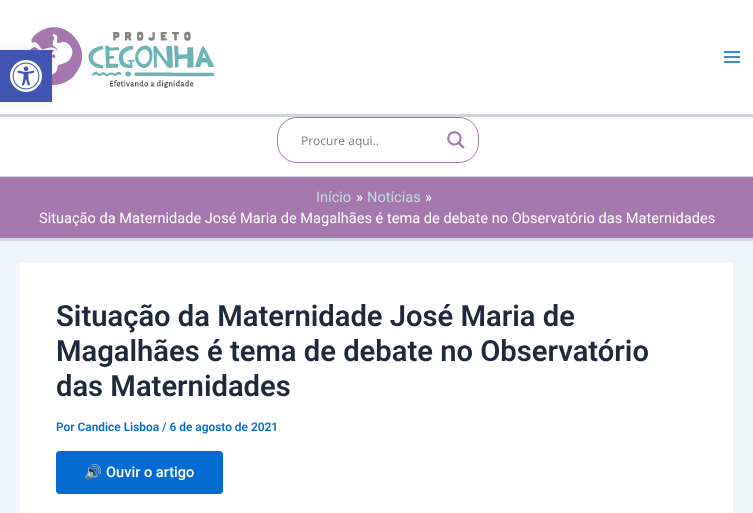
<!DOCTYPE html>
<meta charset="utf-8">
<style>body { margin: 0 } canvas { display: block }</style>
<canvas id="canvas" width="753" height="513"></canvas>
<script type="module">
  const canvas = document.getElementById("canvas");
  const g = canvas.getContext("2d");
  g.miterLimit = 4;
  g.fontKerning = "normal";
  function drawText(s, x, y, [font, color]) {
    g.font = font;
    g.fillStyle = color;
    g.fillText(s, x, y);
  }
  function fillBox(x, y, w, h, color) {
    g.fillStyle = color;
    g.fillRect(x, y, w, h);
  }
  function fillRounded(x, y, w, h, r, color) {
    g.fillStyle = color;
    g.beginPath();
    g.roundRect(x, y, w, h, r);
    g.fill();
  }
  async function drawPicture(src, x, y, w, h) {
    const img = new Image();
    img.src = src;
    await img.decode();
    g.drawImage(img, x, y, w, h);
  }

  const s1 = ["12px Open Sans", "#7D7D7D"];
  const s2 = ["14.6px Roboto", "#BDDEDE"];
  const s3 = ["14.6px Roboto", "#FFFFFF"];
  const s4 = ["600 29.2px Roboto", "#1E293B"];
  const s5 = ["600 11.9px Roboto", "#046BD2"];
  const s6 = ["14.6px Noto Color Emoji", "#FFFFFF"];
  const s7 = ["500 14.6px Roboto", "#FFFFFF"];

  fillBox(0, 0, 753, 513, "#F0F5FA");
  fillBox(0, 0, 753, 114, "#FFFFFF");
  fillBox(0, 114, 753, 3, "#D1D5DB");
  await drawPicture("pic2.png", 30, 27, 184, 61);
  fillBox(0, 117, 753, 59, "#FFFFFF");
  g.fillStyle = "rgba(0, 0, 0, 0.1)";
  g.filter = "blur(5px)";
  g.beginPath();
  g.rect(0, 50, 52, 52);
  g.fill();
  g.filter = "none";
  fillBox(0, 50, 52, 52, "#4054B2");
  await drawPicture("pic1.png", 10, 60, 32, 32);
  await drawPicture("pic3.png", 723, 51, 18, 12);
  fillBox(0, 176, 753, 1, "#D1D5DB");
  g.beginPath();
  g.roundRect(277.5, 117.5, 201, 45, 19.5);
  g.strokeStyle = "#A577AE";
  g.stroke();
  fillRounded(278, 118, 200, 44, 22, "#FFFFFF");
  drawText("Procure aqui..", 301, 145, s1);
  await drawPicture("pic4.png", 447, 131, 18, 18);
  fillBox(0, 177, 753, 61, "#A577AE");
  fillBox(0, 238, 753, 3, "#D1D5DB");
  drawText("Início", 316, 202, s2);
  drawText("»", 356, 202, s3);
  drawText("Notícias", 367, 202, s2);
  drawText("»", 425, 202, s3);
  drawText("Situação da Maternidade José Maria de Magalhães é tema de debate no Observatório das Maternidades", 39, 223, s3);
  fillBox(20, 263, 713, 250, "#FFFFFF");
  drawText("Situação da Maternidade José Maria de", 56, 326, s4);
  drawText("Magalhães é tema de debate no Observatório", 56, 361, s4);
  drawText("das Maternidades", 56, 396, s4);
  drawText("Por Candice Lisboa / 6 de agosto de 2021", 56, 431, s5);
  g.fillStyle = "rgba(0, 0, 0, 0.05)";
  g.filter = "blur(1px)";
  g.beginPath();
  g.roundRect(56, 452, 167, 43, 4);
  g.fill();
  g.filter = "none";
  fillRounded(56, 451, 167, 43, 4, "#046BD2");
  drawText("🔊", 84, 477, s6);
  drawText("Ouvir o artigo", 106, 477, s7);
</script>
